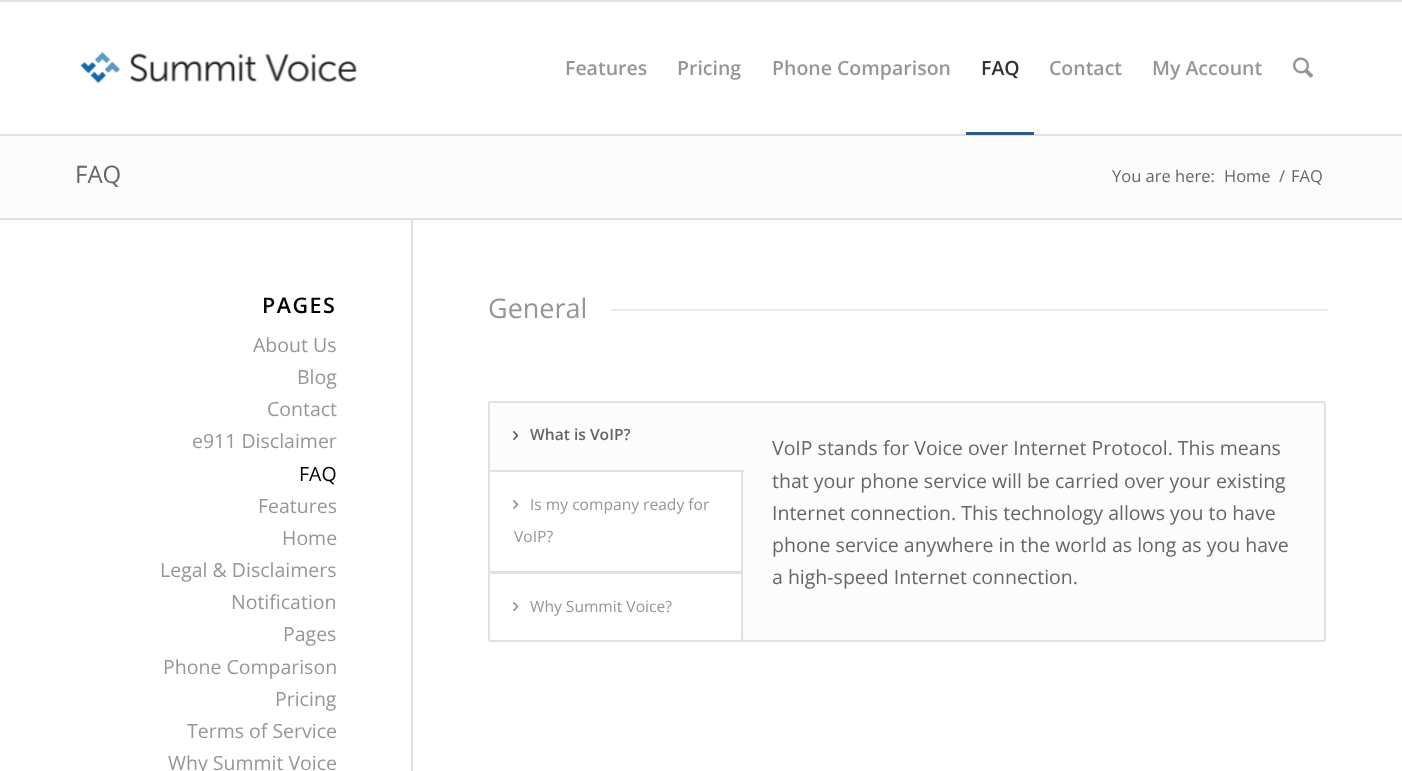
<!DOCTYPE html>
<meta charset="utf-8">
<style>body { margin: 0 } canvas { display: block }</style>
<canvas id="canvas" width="1402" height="771"></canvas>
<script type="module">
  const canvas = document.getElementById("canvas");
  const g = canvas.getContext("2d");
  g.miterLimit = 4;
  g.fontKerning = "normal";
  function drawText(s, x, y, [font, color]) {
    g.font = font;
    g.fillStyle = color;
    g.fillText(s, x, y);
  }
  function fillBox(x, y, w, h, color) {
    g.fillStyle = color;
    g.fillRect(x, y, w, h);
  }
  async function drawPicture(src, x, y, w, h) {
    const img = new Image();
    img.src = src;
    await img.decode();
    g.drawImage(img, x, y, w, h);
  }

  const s1 = ["600 19.5px Open Sans", "#969696"];
  const s2 = ["600 19.5px Open Sans", "#333333"];
  const s3 = ["24px Open Sans", "#666666"];
  const s4 = ["16.5px Open Sans", "#666666"];
  const s5 = ["600 21.5px Open Sans", "#000000"];
  const s6 = ["19.5px Open Sans", "#969696"];
  const s7 = ["19.5px Open Sans", "#000000"];
  const s8 = ["27px Open Sans", "#969696"];
  const s9 = ["600 15.6px Open Sans", "#666666"];
  const s10 = ["15.6px Open Sans", "#969696"];
  const s11 = ["19.5px Open Sans", "#666666"];

  fillBox(0, 0, 1402, 771, "#FFFFFF");
  fillBox(0, 0, 1402, 2, "#E1E1E1");
  fillBox(0, 134, 1402, 2, "#E1E1E1");
  await drawPicture("pic1.png", 80, 51, 277, 33);
  drawText("Features", 565, 75, s1);
  drawText("Pricing", 677, 75, s1);
  drawText("Phone Comparison", 772, 75, s1);
  drawText("FAQ", 981, 75, s2);
  fillBox(966, 132, 68, 3, "#2D5C88");
  drawText("Contact", 1049, 75, s1);
  drawText("My Account", 1152, 75, s1);
  await drawPicture("pic2.png", 1293, 57, 21, 21);
  fillBox(0, 136, 1402, 82, "#FCFCFC");
  drawText("FAQ", 75, 183, s3);
  drawText("You are here:", 1112, 182, s4);
  drawText("Home", 1224, 182, s4);
  drawText("/", 1279, 182, s4);
  drawText("FAQ", 1291, 182, s4);
  fillBox(0, 218, 1402, 2, "#E1E1E1");
  fillBox(411, 219, 2, 552, "#E1E1E1");
  g.letterSpacing = "1.5px";
  drawText("PAGES", 262, 313, s5);
  g.letterSpacing = "0px";
  drawText("About Us", 253, 352, s6);
  drawText("Blog", 297, 384, s6);
  drawText("Contact", 267, 416, s6);
  drawText("e911 Disclaimer", 192, 448, s6);
  drawText("FAQ", 299, 481, s7);
  drawText("Features", 258, 513, s6);
  drawText("Home", 282, 545, s6);
  drawText("Legal & Disclaimers", 160, 577, s6);
  drawText("Notification", 231, 609, s6);
  drawText("Pages", 283, 641, s6);
  drawText("Phone Comparison", 163, 674, s6);
  drawText("Pricing", 275, 706, s6);
  drawText("Terms of Service", 187, 738, s6);
  drawText("Why Summit Voice", 168, 770, s6);
  drawText("General", 488, 318, s8);
  fillBox(611, 309, 717, 2, "#EAEAEA");
  g.fillStyle = "#FCFCFC";
  g.beginPath();
  g.roundRect(742, 402, 583, 239, 2);
  g.fill();
  g.strokeStyle = "#E1E1E1";
  g.lineWidth = 2;
  g.stroke();
  g.strokeRect(489, 471, 253, 101);
  g.beginPath();
  g.roundRect(488, 401, 256, 70, [3, 0, 0, 0]);
  g.fill();
  fillBox(489, 401, 255, 2, "#E1E1E1");
  fillBox(488, 470, 256, 2, "#E1E1E1");
  fillBox(488, 402, 2, 69, "#E1E1E1");
  await drawPicture("pic3.png", 513, 431, 6, 9);
  drawText("What is VoIP?", 530, 440, s9);
  await drawPicture("pic4.png", 513, 500, 6, 9);
  drawText("Is my company ready for", 530, 510, s10);
  drawText("VoIP?", 514, 542, s10);
  g.beginPath();
  g.roundRect(489, 573, 253, 68, [0, 0, 0, 2]);
  g.stroke();
  await drawPicture("pic4.png", 513, 602, 6, 9);
  drawText("Why Summit Voice?", 530, 612, s10);
  drawText("VoIP stands for Voice over Internet Protocol. This means", 772, 455, s11);
  drawText("that your phone service will be carried over your existing", 772, 488, s11);
  drawText("Internet connection. This technology allows you to have", 772, 520, s11);
  drawText("phone service anywhere in the world as long as you have", 772, 552, s11);
  drawText("a high-speed Internet connection.", 772, 584, s11);
</script>
